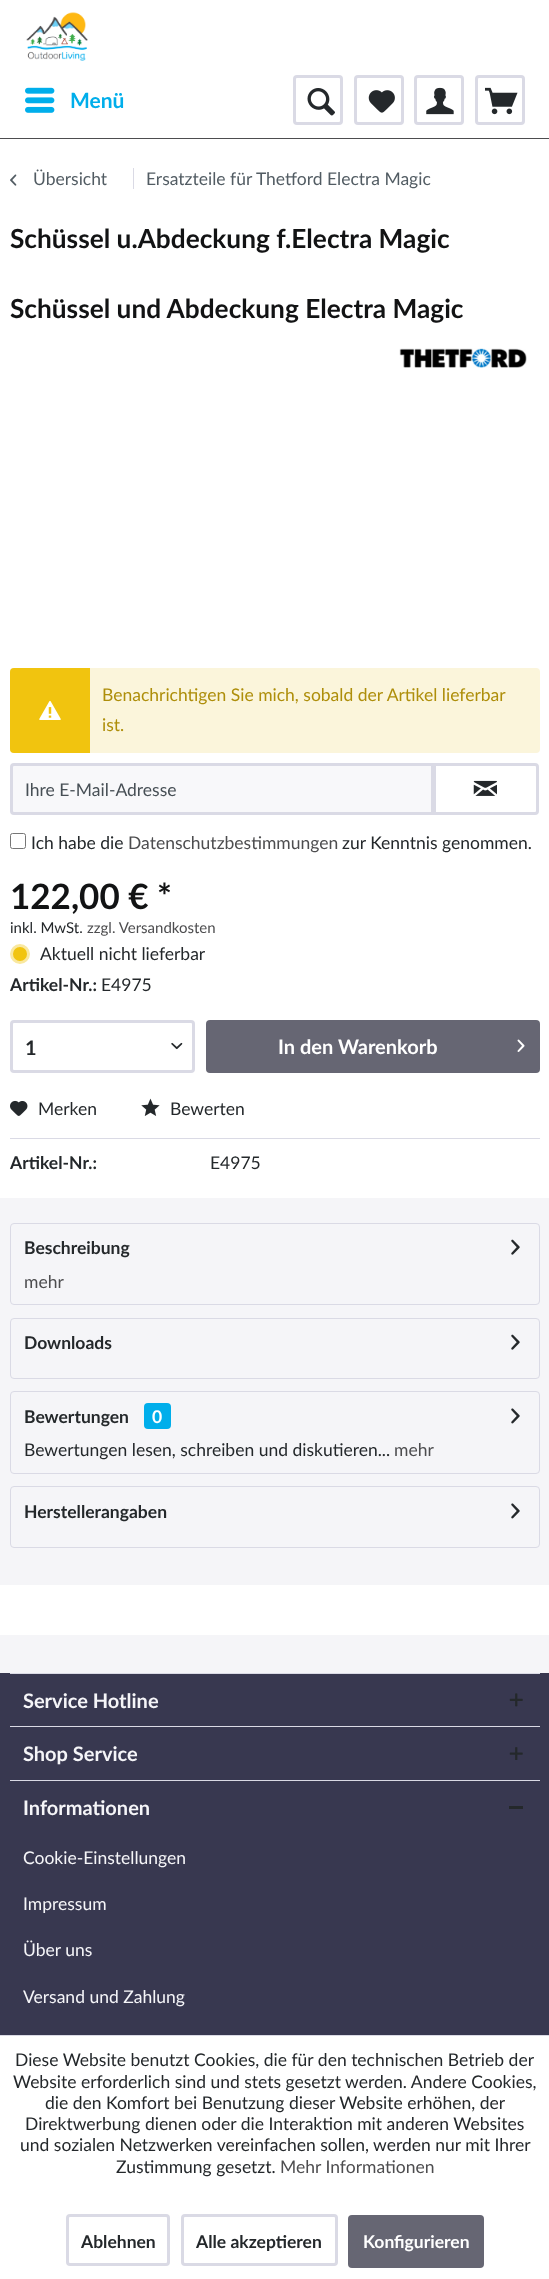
<!DOCTYPE html>
<meta charset="utf-8">
<style>body { margin: 0 } canvas { display: block }</style>
<canvas id="canvas" width="549" height="2279"></canvas>
<script type="module">
  const canvas = document.getElementById("canvas");
  const g = canvas.getContext("2d");
  g.miterLimit = 4;
  g.fontKerning = "normal";
  function drawText(s, x, y, [font, color]) {
    g.font = font;
    g.fillStyle = color;
    g.fillText(s, x, y);
  }
  function fillBox(x, y, w, h, color) {
    g.fillStyle = color;
    g.fillRect(x, y, w, h);
  }
  function fillRounded(x, y, w, h, r, color) {
    g.fillStyle = color;
    g.beginPath();
    g.roundRect(x, y, w, h, r);
    g.fill();
  }
  async function drawPicture(src, x, y, w, h) {
    const img = new Image();
    img.src = src;
    await img.decode();
    g.drawImage(img, x, y, w, h);
  }

  const s1 = ["bold 21px Lato", "#00AEEB"];
  const s2 = ["17.5px Lato", "#525C63"];
  const s3 = ["bold 26.25px Lato", "#121314"];
  const s4 = ["17.5px Lato", "#AE8E0A"];
  const s5 = ["17.5px Lato", "#474F55"];
  const s6 = ["17.5px Lato", "#24282B"];
  const s7 = ["17.5px Lato", "#4D4D4F"];
  const s8 = ["bold 35px Lato", "#121314"];
  const s9 = ["15px Lato", "#24282B"];
  const s10 = ["15px Lato", "#4D4D4F"];
  const s11 = ["bold 17.5px Lato", "#24282B"];
  const s12 = ["bold 20px Lato", "#24282B"];
  const s13 = ["bold 20px Lato", "#FFFFFF"];
  const s14 = ["bold 17.5px Lato", "#FFFFFF"];
  const s15 = ["bold 20px Lato", "#F5F5F8"];
  const s16 = ["17.5px Lato", "#F5F5F8"];

  fillBox(0, 0, 549, 2279, "#FFFFFF");
  fillBox(0, 138, 549, 1, "#4D4D4F");
  await drawPicture("pic1.png", 26, 12, 62, 49);
  await drawPicture("pic2.png", 25, 87, 30, 26);
  drawText("Menü", 70, 108, s1);
  g.beginPath();
  g.roundRect(294.5, 76.5, 47, 47, 2.5);
  g.strokeStyle = "#DADAE5";
  g.lineWidth = 3;
  g.stroke();
  await drawPicture("pic3.png", 307, 88, 28, 28);
  g.beginPath();
  g.roundRect(355.5, 76.5, 47, 47, 2.5);
  g.stroke();
  await drawPicture("pic4.png", 368, 90, 27, 23);
  g.beginPath();
  g.roundRect(415.5, 76.5, 47, 47, 2.5);
  g.stroke();
  await drawPicture("pic5.png", 426, 87, 28, 28);
  g.beginPath();
  g.roundRect(476.5, 76.5, 47, 47, 2.5);
  g.stroke();
  await drawPicture("pic6.png", 485, 87, 33, 28);
  await drawPicture("pic7.png", 10, 174, 7, 12);
  drawText("Übersicht", 33, 185, s2);
  fillBox(133, 168, 1, 21, "#DADAE5");
  drawText("Ersatzteile für Thetford Electra Magic", 146, 185, s2);
  drawText("Schüssel u.Abdeckung f.Electra Magic", 10, 248, s3);
  drawText("Schüssel und Abdeckung Electra Magic", 10, 318, s3);
  await drawPicture("pic8.png", 399, 348, 128, 20);
  fillRounded(10, 668, 530, 85, 4, "#FBF5DB");
  g.fillStyle = "#F1C40F";
  g.beginPath();
  g.roundRect(10, 668, 80, 85, [4, 0, 0, 4]);
  g.fill();
  await drawPicture("pic9.png", 39, 700, 22, 20);
  drawText("Benachrichtigen Sie mich, sobald der Artikel lieferbar", 102, 701, s4);
  drawText("ist.", 102, 731, s4);
  fillBox(13, 766, 418, 46, "#F8F8FA");
  g.beginPath();
  g.roundRect(11.5, 764.5, 421, 49, [2.5, 0, 0, 2.5]);
  g.stroke();
  drawText("Ihre E-Mail-Adresse", 25, 796, s5);
  g.beginPath();
  g.roundRect(434.5, 764.5, 103, 49, [0, 2.5, 2.5, 0]);
  g.stroke();
  await drawPicture("pic10.png", 473, 780, 24, 16);
  g.beginPath();
  g.roundRect(10.5, 833.5, 15, 15, 2);
  g.strokeStyle = "#767676";
  g.lineWidth = 1;
  g.stroke();
  drawText("Ich habe die", 31, 849, s6);
  drawText("Datenschutzbestimmungen", 128, 849, s7);
  drawText("zur Kenntnis genommen.", 342, 849, s6);
  drawText("122,00 € *", 10, 909, s8);
  drawText("inkl. MwSt.", 10, 933, s9);
  drawText("zzgl. Versandkosten", 87, 933, s10);
  g.fillStyle = "#F1C40F";
  g.beginPath();
  g.arc(20, 954, 8.5, 0, Math.PI * 2);
  g.fill();
  g.strokeStyle = "#F9E8A0";
  g.lineWidth = 3;
  g.stroke();
  drawText("Aktuell nicht lieferbar", 40, 960, s6);
  drawText("Artikel-Nr.:", 10, 991, s11);
  drawText("E4975", 101, 991, s6);
  g.beginPath();
  g.roundRect(11.5, 1021.5, 182, 50, 2.5);
  g.strokeStyle = "#DADAE5";
  g.stroke();
  drawText("1", 25, 1055, s12);
  await drawPicture("pic11.png", 171, 1042, 12, 8);
  fillRounded(206, 1020, 334, 53, 4, "#666673");
  drawText("In den Warenkorb", 278, 1054, s13);
  await drawPicture("pic12.png", 517, 1039, 8, 13);
  fillBox(10, 1138, 530, 1, "#DADAE5");
  await drawPicture("pic13.png", 10, 1100, 18, 16);
  drawText("Merken", 38, 1115, s6);
  await drawPicture("pic14.png", 141, 1098, 19, 18);
  drawText("Bewerten", 170, 1115, s6);
  drawText("Artikel-Nr.:", 10, 1169, s11);
  drawText("E4975", 210, 1169, s6);
  fillBox(0, 1198, 549, 387, "#F5F5F8");
  g.beginPath();
  g.roundRect(10.5, 1223.5, 529, 81, 3.5);
  g.lineWidth = 1;
  g.stroke();
  drawText("Beschreibung", 24, 1254, s11);
  await drawPicture("pic15.png", 511, 1239, 9, 16);
  drawText("mehr", 24, 1288, s7);
  g.beginPath();
  g.roundRect(10.5, 1318.5, 529, 60, 3.5);
  g.stroke();
  drawText("Downloads", 24, 1349, s11);
  await drawPicture("pic15.png", 511, 1334, 9, 16);
  g.beginPath();
  g.roundRect(10.5, 1391.5, 529, 82, 3.5);
  g.stroke();
  drawText("Bewertungen", 24, 1423, s11);
  await drawPicture("pic16.png", 511, 1408, 9, 16);
  fillRounded(144, 1403, 27, 26, 4, "#00AEEB");
  drawText("0", 152, 1423, s14);
  drawText("Bewertungen lesen, schreiben und diskutieren...", 24, 1456, s6);
  drawText("mehr", 394, 1456, s7);
  g.beginPath();
  g.roundRect(10.5, 1486.5, 529, 61, 3.5);
  g.stroke();
  drawText("Herstellerangaben", 24, 1518, s11);
  await drawPicture("pic16.png", 511, 1503, 9, 16);
  fillBox(0, 1635, 549, 38, "#F5F5F8");
  fillBox(0, 1673, 549, 362, "#383850");
  fillBox(10, 1673, 530, 1, "#DADAE5");
  drawText("Service Hotline", 23, 1708, s15);
  await drawPicture("pic17.png", 509, 1693, 14, 14);
  fillBox(10, 1726, 530, 1, "#DADAE5");
  drawText("Shop Service", 23, 1761, s15);
  await drawPicture("pic18.png", 509, 1747, 14, 13);
  fillBox(10, 1780, 530, 1, "#DADAE5");
  drawText("Informationen", 23, 1815, s15);
  fillBox(509, 1806, 14, 3, "#24282B");
  drawText("Cookie-Einstellungen", 23, 1864, s16);
  drawText("Impressum", 23, 1910, s16);
  drawText("Über uns", 23, 1956, s16);
  drawText("Versand und Zahlung", 23, 2003, s16);
  fillBox(0, 2035, 549, 1, "#DADAE5");
  drawText("Diese Website benutzt Cookies, die für den technischen Betrieb der", 15, 2066, s6);
  drawText("Website erforderlich sind und stets gesetzt werden. Andere Cookies,", 13, 2088, s6);
  drawText("die den Komfort bei Benutzung dieser Website erhöhen, der", 45, 2109, s6);
  drawText("Direktwerbung dienen oder die Interaktion mit anderen Websites", 25, 2130, s6);
  drawText("und sozialen Netzwerken vereinfachen sollen, werden nur mit Ihrer", 20, 2151, s6);
  drawText("Zustimmung gesetzt.", 116, 2173, s6);
  drawText("Mehr Informationen", 280, 2173, s7);
  g.beginPath();
  g.roundRect(67.5, 2215.5, 101, 49, 2.5);
  g.lineWidth = 3;
  g.stroke();
  drawText("Ablehnen", 81, 2248, s11);
  g.beginPath();
  g.roundRect(182.5, 2215.5, 154, 49, 2.5);
  g.stroke();
  drawText("Alle akzeptieren", 196, 2248, s11);
  fillRounded(348, 2215, 136, 53, 4, "#666673");
  drawText("Konfigurieren", 363, 2248, s14);
</script>
